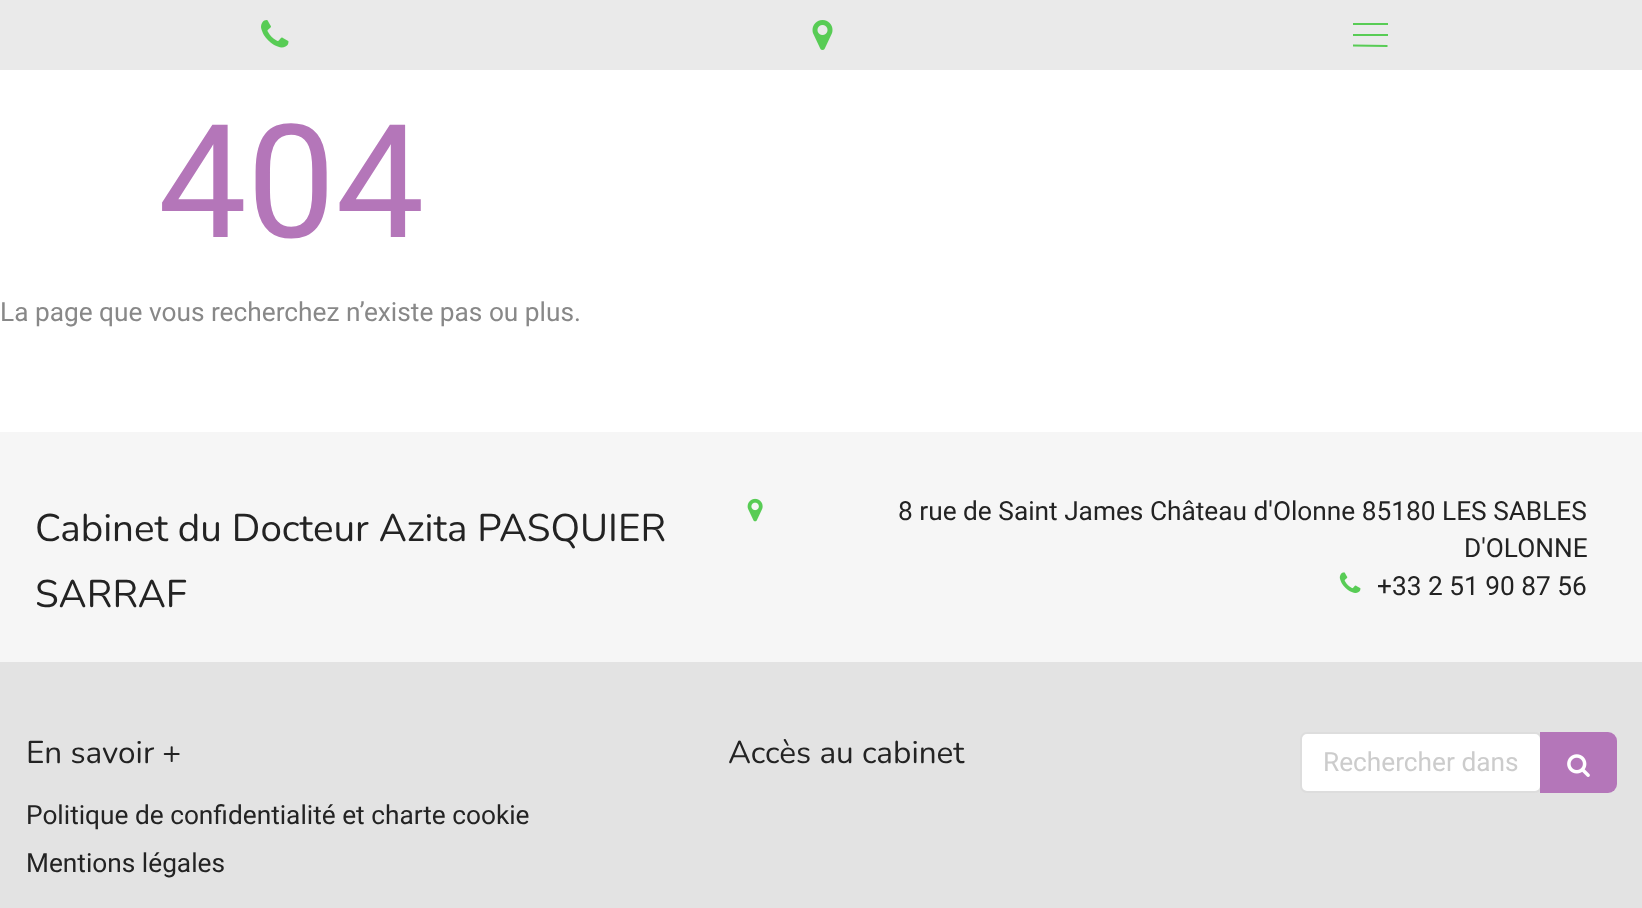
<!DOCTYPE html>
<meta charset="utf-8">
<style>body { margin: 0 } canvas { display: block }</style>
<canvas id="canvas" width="1642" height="908"></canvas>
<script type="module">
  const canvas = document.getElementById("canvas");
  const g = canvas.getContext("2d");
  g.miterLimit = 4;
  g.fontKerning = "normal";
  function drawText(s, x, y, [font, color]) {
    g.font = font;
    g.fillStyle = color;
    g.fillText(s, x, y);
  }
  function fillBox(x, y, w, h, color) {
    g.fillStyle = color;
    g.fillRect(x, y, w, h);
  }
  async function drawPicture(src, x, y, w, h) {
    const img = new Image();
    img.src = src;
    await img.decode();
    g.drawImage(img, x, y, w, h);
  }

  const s1 = ["158px Roboto", "#B476B9"];
  const s2 = ["26.25px Roboto", "#888888"];
  const s3 = ["38.5px Nunito", "#232323"];
  const s4 = ["26.25px Roboto", "#232323"];
  const s5 = ["31.5px Nunito", "#232323"];
  const s6 = ["26.25px Roboto", "#CCCCCC"];

  fillBox(0, 0, 1642, 908, "#FFFFFF");
  fillBox(0, 0, 1642, 70, "#EAEAEA");
  await drawPicture("pic1.png", 261, 20, 28, 28);
  await drawPicture("pic2.png", 812, 20, 21, 30);
  fillBox(1353, 23, 35, 2, "#58CC55");
  fillBox(1353, 34, 35, 2, "#58CC55");
  g.beginPath();
  g.moveTo(1353, 45.5);
  g.lineTo(1387.5, 46);
  g.strokeStyle = "#58CC55";
  g.lineWidth = 2.1;
  g.stroke();
  drawText("404", 158, 237, s1);
  drawText("La page que vous recherchez n’existe pas ou plus.", 0, 321, s2);
  fillBox(0, 432, 1642, 230, "#F6F6F6");
  drawText("Cabinet du Docteur Azita PASQUIER", 35, 541, s3);
  drawText("SARRAF", 35, 607, s3);
  await drawPicture("pic3.png", 747, 498, 16, 24);
  drawText("8 rue de Saint James Château d'Olonne 85180 LES SABLES", 898, 520, s4);
  drawText("D'OLONNE", 1464, 557, s4);
  await drawPicture("pic4.png", 1339, 572, 22, 21);
  drawText("+33 2 51 90 87 56", 1377, 595, s4);
  fillBox(0, 662, 1642, 246, "#E3E3E3");
  drawText("En savoir +", 26, 763, s5);
  drawText("Politique de confidentialité et charte cookie", 26, 824, s4);
  drawText("Mentions légales", 26, 872, s4);
  drawText("Accès au cabinet", 728, 763, s5);
  g.fillStyle = "#FFFFFF";
  g.beginPath();
  g.roundRect(1301, 733, 240, 59, 6);
  g.fill();
  g.strokeStyle = "#DDDDDD";
  g.lineWidth = 2;
  g.stroke();
  drawText("Rechercher dans", 1323, 771, s6);
  g.fillStyle = "#B476B9";
  g.beginPath();
  g.roundRect(1540, 732, 77, 61, [0, 9, 9, 0]);
  g.fill();
  await drawPicture("pic5.png", 1567, 754, 23, 23);
</script>
